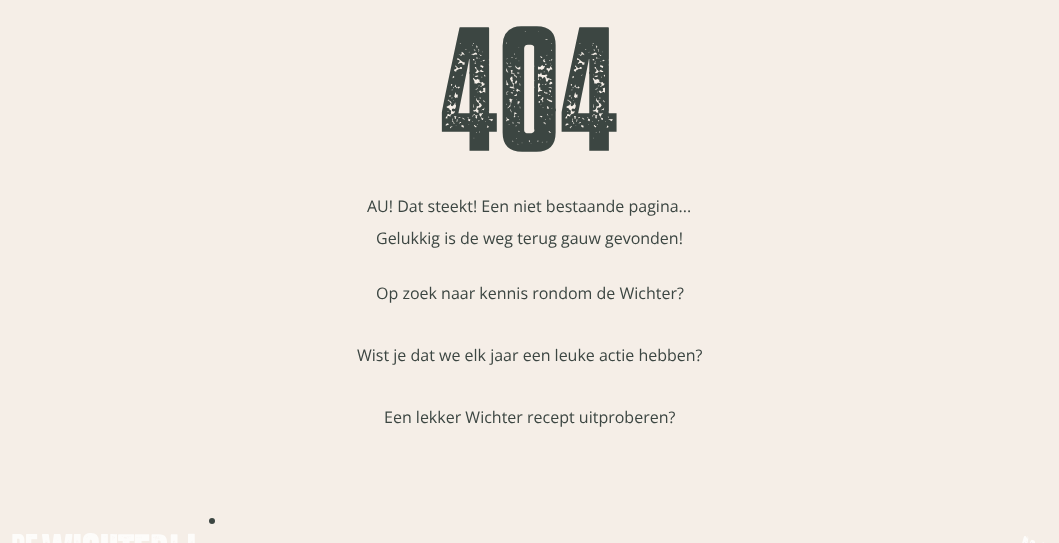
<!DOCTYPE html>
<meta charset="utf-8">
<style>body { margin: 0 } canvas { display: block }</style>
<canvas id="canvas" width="1059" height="543"></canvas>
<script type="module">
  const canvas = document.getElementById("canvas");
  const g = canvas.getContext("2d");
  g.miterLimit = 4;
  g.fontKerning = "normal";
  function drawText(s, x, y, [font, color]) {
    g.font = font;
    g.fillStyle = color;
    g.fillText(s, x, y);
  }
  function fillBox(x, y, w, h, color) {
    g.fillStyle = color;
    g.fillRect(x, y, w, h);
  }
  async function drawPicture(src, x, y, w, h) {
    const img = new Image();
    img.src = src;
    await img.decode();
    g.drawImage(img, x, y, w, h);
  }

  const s1 = ["144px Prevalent", "#3C4642"];
  const s2 = ["16px Open Sans", "#3C4642"];

  fillBox(0, 0, 1059, 543, "#F5EEE7");
  drawText("404", 439, 89, s1);
  drawText("AU! Dat steekt! Een niet bestaande pagina...", 367, 212, s2);
  drawText("Gelukkig is de weg terug gauw gevonden!", 376, 244, s2);
  drawText("Op zoek naar kennis rondom de Wichter?", 376, 299, s2);
  drawText("Wist je dat we elk jaar een leuke actie hebben?", 357, 361, s2);
  drawText("Een lekker Wichter recept uitproberen?", 384, 423, s2);
  g.beginPath();
  g.arc(212, 521, 3, 0, Math.PI * 2);
  g.fill();
  await drawPicture("pic1.png", 12, 533, 183, 10);
  await drawPicture("pic2.png", 1022, 536, 22, 7);
</script>
